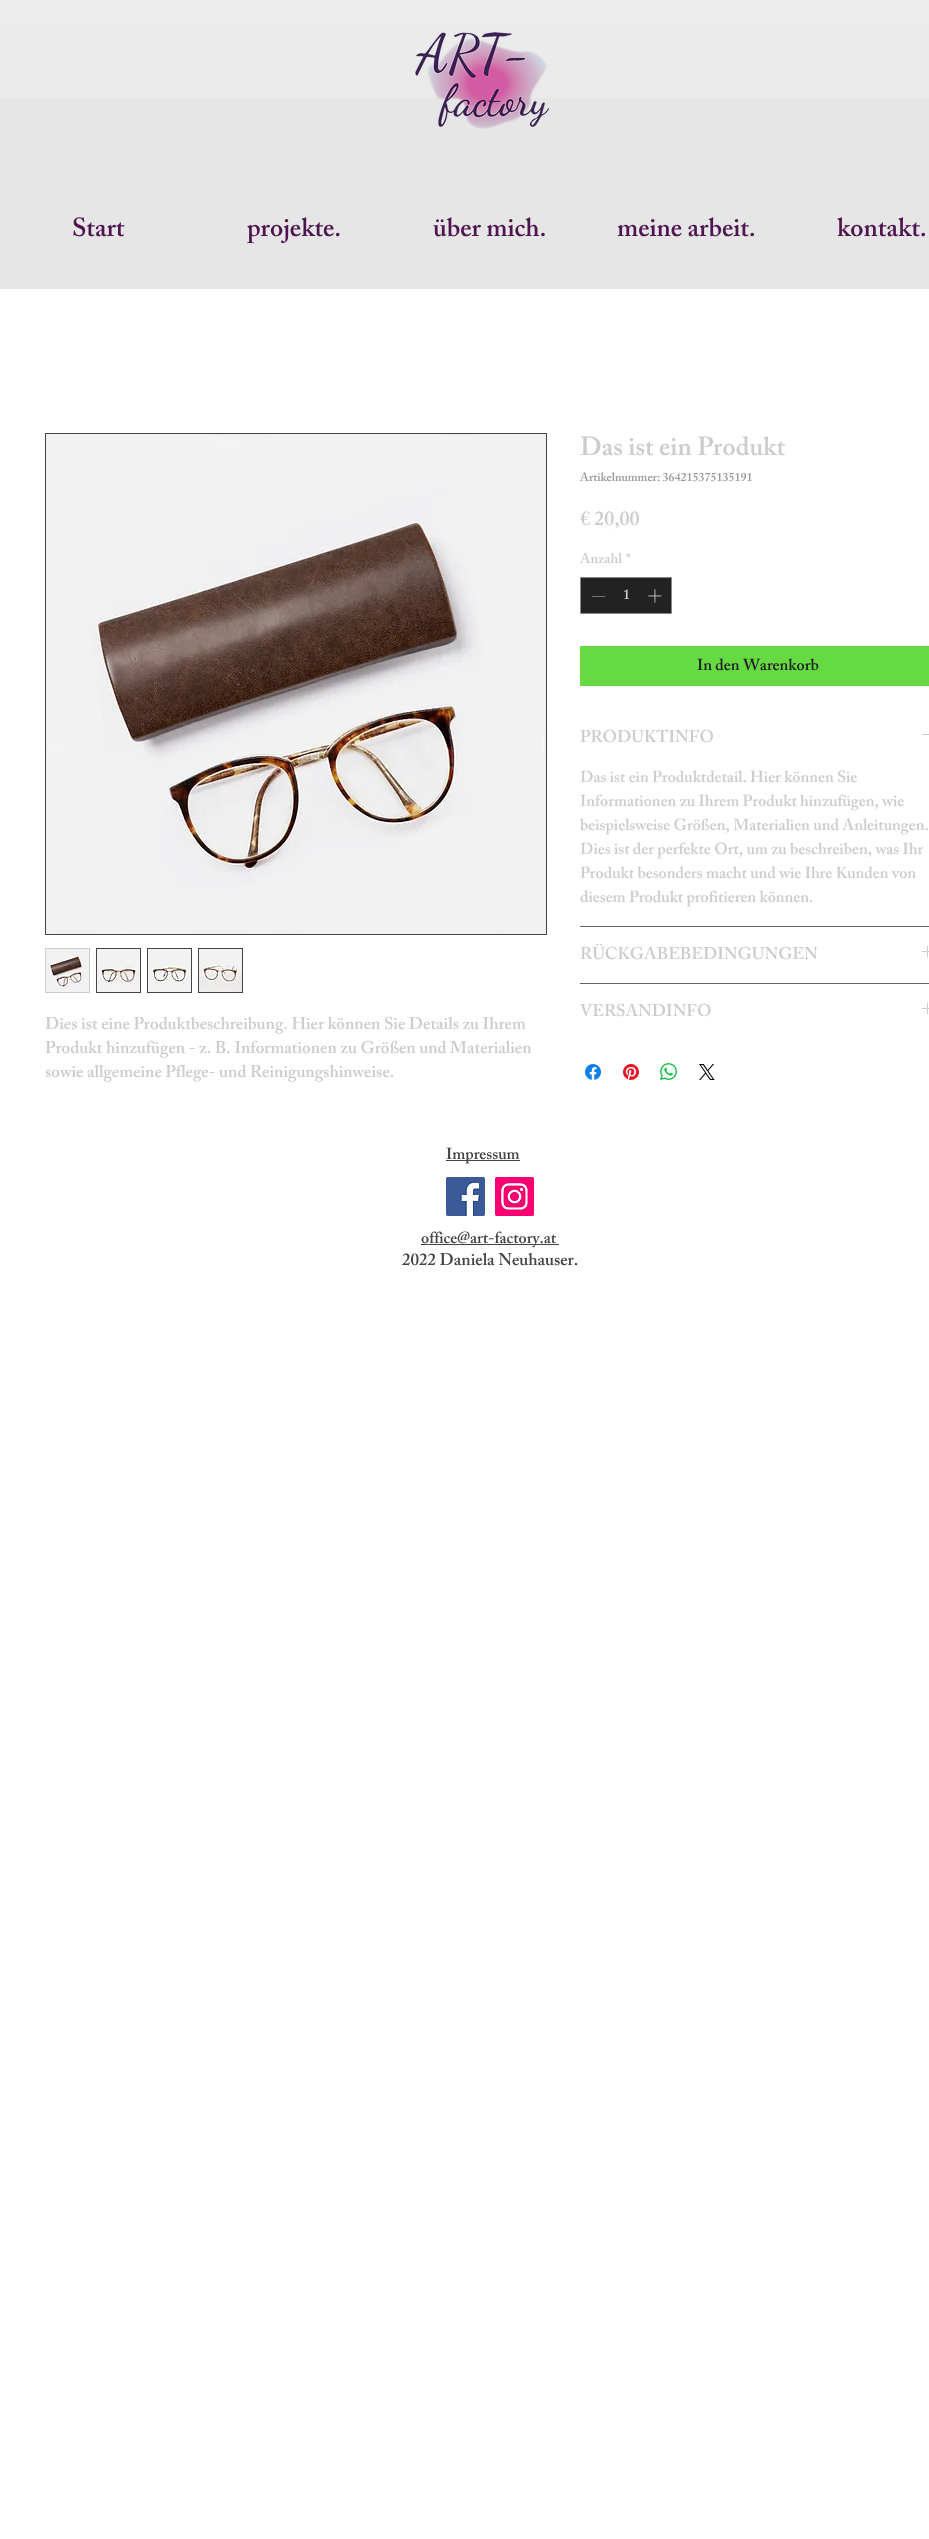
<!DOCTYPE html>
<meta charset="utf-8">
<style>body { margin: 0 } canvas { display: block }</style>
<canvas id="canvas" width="929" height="2539"></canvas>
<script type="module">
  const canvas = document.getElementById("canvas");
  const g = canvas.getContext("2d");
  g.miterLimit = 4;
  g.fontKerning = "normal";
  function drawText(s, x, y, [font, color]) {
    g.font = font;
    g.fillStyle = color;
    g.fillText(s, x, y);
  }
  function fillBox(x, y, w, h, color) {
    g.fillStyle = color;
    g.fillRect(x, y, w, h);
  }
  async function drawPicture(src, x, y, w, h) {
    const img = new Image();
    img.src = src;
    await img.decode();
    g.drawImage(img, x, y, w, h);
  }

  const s1 = ["600 26px 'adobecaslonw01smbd'", "#4E1450"];
  const s2 = ["600 26px 'adobecaslonw01smbd'", "#CCCCCC"];
  const s3 = ["600 12px 'adobecaslonw01smbd'", "#999999"];
  const s4 = ["600 20px 'adobecaslonw01smbd'", "#CCCCCC"];
  const s5 = ["600 14px 'adobecaslonw01smbd'", "#CCCCCC"];
  const s6 = ["600 16px 'adobecaslonw01smbd'", "#222222"];
  const s7 = ["600 17px 'adobecaslonw01smbd'", "#CCCCCC"];
  const s8 = ["600 16px 'adobecaslonw01smbd'", "#CCCCCC"];
  const s9 = ["600 16px 'adobecaslonw01smbd'", "#444444"];
  const s10 = ["600 17px 'adobecaslonw01smbd'", "#444444"];

  fillBox(0, 0, 929, 2539, "#FFFFFF");
  fillBox(0, 0, 929, 289, "#E6E6E6");
  await drawPicture("pic1.png", 0, 0, 929, 98);
  await drawPicture("pic2.png", 415, 32, 135, 97);
  drawText("Start", 72, 236, s1);
  drawText("projekte.", 247, 236, s1);
  drawText("über mich.", 433, 236, s1);
  drawText("meine arbeit.", 617, 236, s1);
  drawText("kontakt.", 837, 236, s1);
  drawText("Das ist ein Produkt", 580, 455, s2);
  drawText("Artikelnummer: 364215375135191", 580, 481, s3);
  drawText("€ 20,00", 580, 525, s4);
  drawText("Anzahl", 580, 563, s5);
  drawText("*", 626, 563, s5);
  g.fillStyle = "#222222";
  g.beginPath();
  g.rect(580.5, 577.5, 91, 36);
  g.fill();
  g.strokeStyle = "#888888";
  g.stroke();
  fillBox(592, 596, 13, 1, "#757575");
  drawText("1", 623, 599, s5);
  await drawPicture("pic3.png", 648, 589, 14, 14);
  fillBox(580, 646, 349, 40, "#66DA43");
  drawText("In den Warenkorb", 697, 670, s6);
  fillBox(580, 926, 349, 1, "#666666");
  drawText("PRODUKTINFO", 580, 742, s7);
  fillBox(922, 734, 7, 1, "#CCCCCC");
  drawText("Das ist ein Produktdetail. Hier können Sie", 580, 782, s8);
  drawText("Informationen zu Ihrem Produkt hinzufügen, wie", 580, 806, s8);
  drawText("beispielsweise Größen, Materialien und Anleitungen.", 580, 830, s8);
  drawText("Dies ist der perfekte Ort, um zu beschreiben, was Ihr", 580, 854, s8);
  drawText("Produkt besonders macht und wie Ihre Kunden von", 580, 878, s8);
  drawText("diesem Produkt profitieren können.", 580, 902, s8);
  fillBox(580, 983, 349, 1, "#666666");
  drawText("RÜCKGABEBEDINGUNGEN", 580, 959, s7);
  await drawPicture("pic4.png", 922, 946, 7, 11);
  drawText("VERSANDINFO", 580, 1016, s7);
  await drawPicture("pic4.png", 922, 1003, 7, 11);
  await drawPicture("pic5.png", 585, 1064, 16, 16);
  await drawPicture("pic6.png", 623, 1064, 16, 16);
  await drawPicture("pic7.png", 660, 1063, 17, 17);
  await drawPicture("pic8.png", 699, 1064, 16, 16);
  g.strokeStyle = "#444444";
  g.strokeRect(45.5, 433.5, 501, 501);
  await drawPicture("pic9.png", 46, 434, 500, 500);
  g.strokeStyle = "#CCCCCC";
  g.strokeRect(45.5, 948.5, 44, 44);
  await drawPicture("pic10.png", 46, 949, 43, 43);
  fillBox(96, 948, 45, 45, "#444444");
  await drawPicture("pic11.png", 97, 949, 43, 43);
  fillBox(147, 948, 45, 45, "#444444");
  await drawPicture("pic12.png", 148, 949, 43, 43);
  fillBox(198, 948, 45, 45, "#444444");
  await drawPicture("pic13.png", 199, 949, 43, 43);
  drawText("Dies ist eine Produktbeschreibung. Hier können Sie Details zu Ihrem", 45, 1029, s7);
  drawText("Produkt hinzufügen - z. B. Informationen zu Größen und Materialien", 45, 1053, s7);
  drawText("sowie allgemeine Pflege- und Reinigungshinweise.", 45, 1077, s7);
  fillBox(446, 1160, 74, 1, "#444444");
  drawText("Impressum", 446, 1159, s9);
  await drawPicture("pic14.png", 446, 1177, 39, 39);
  await drawPicture("pic15.png", 495, 1177, 39, 39);
  fillBox(421, 1244, 138, 1, "#444444");
  drawText("office@art-factory.at", 421, 1243, s9);
  drawText("2022 Daniela Neuhauser.", 402, 1265, s10);
</script>
